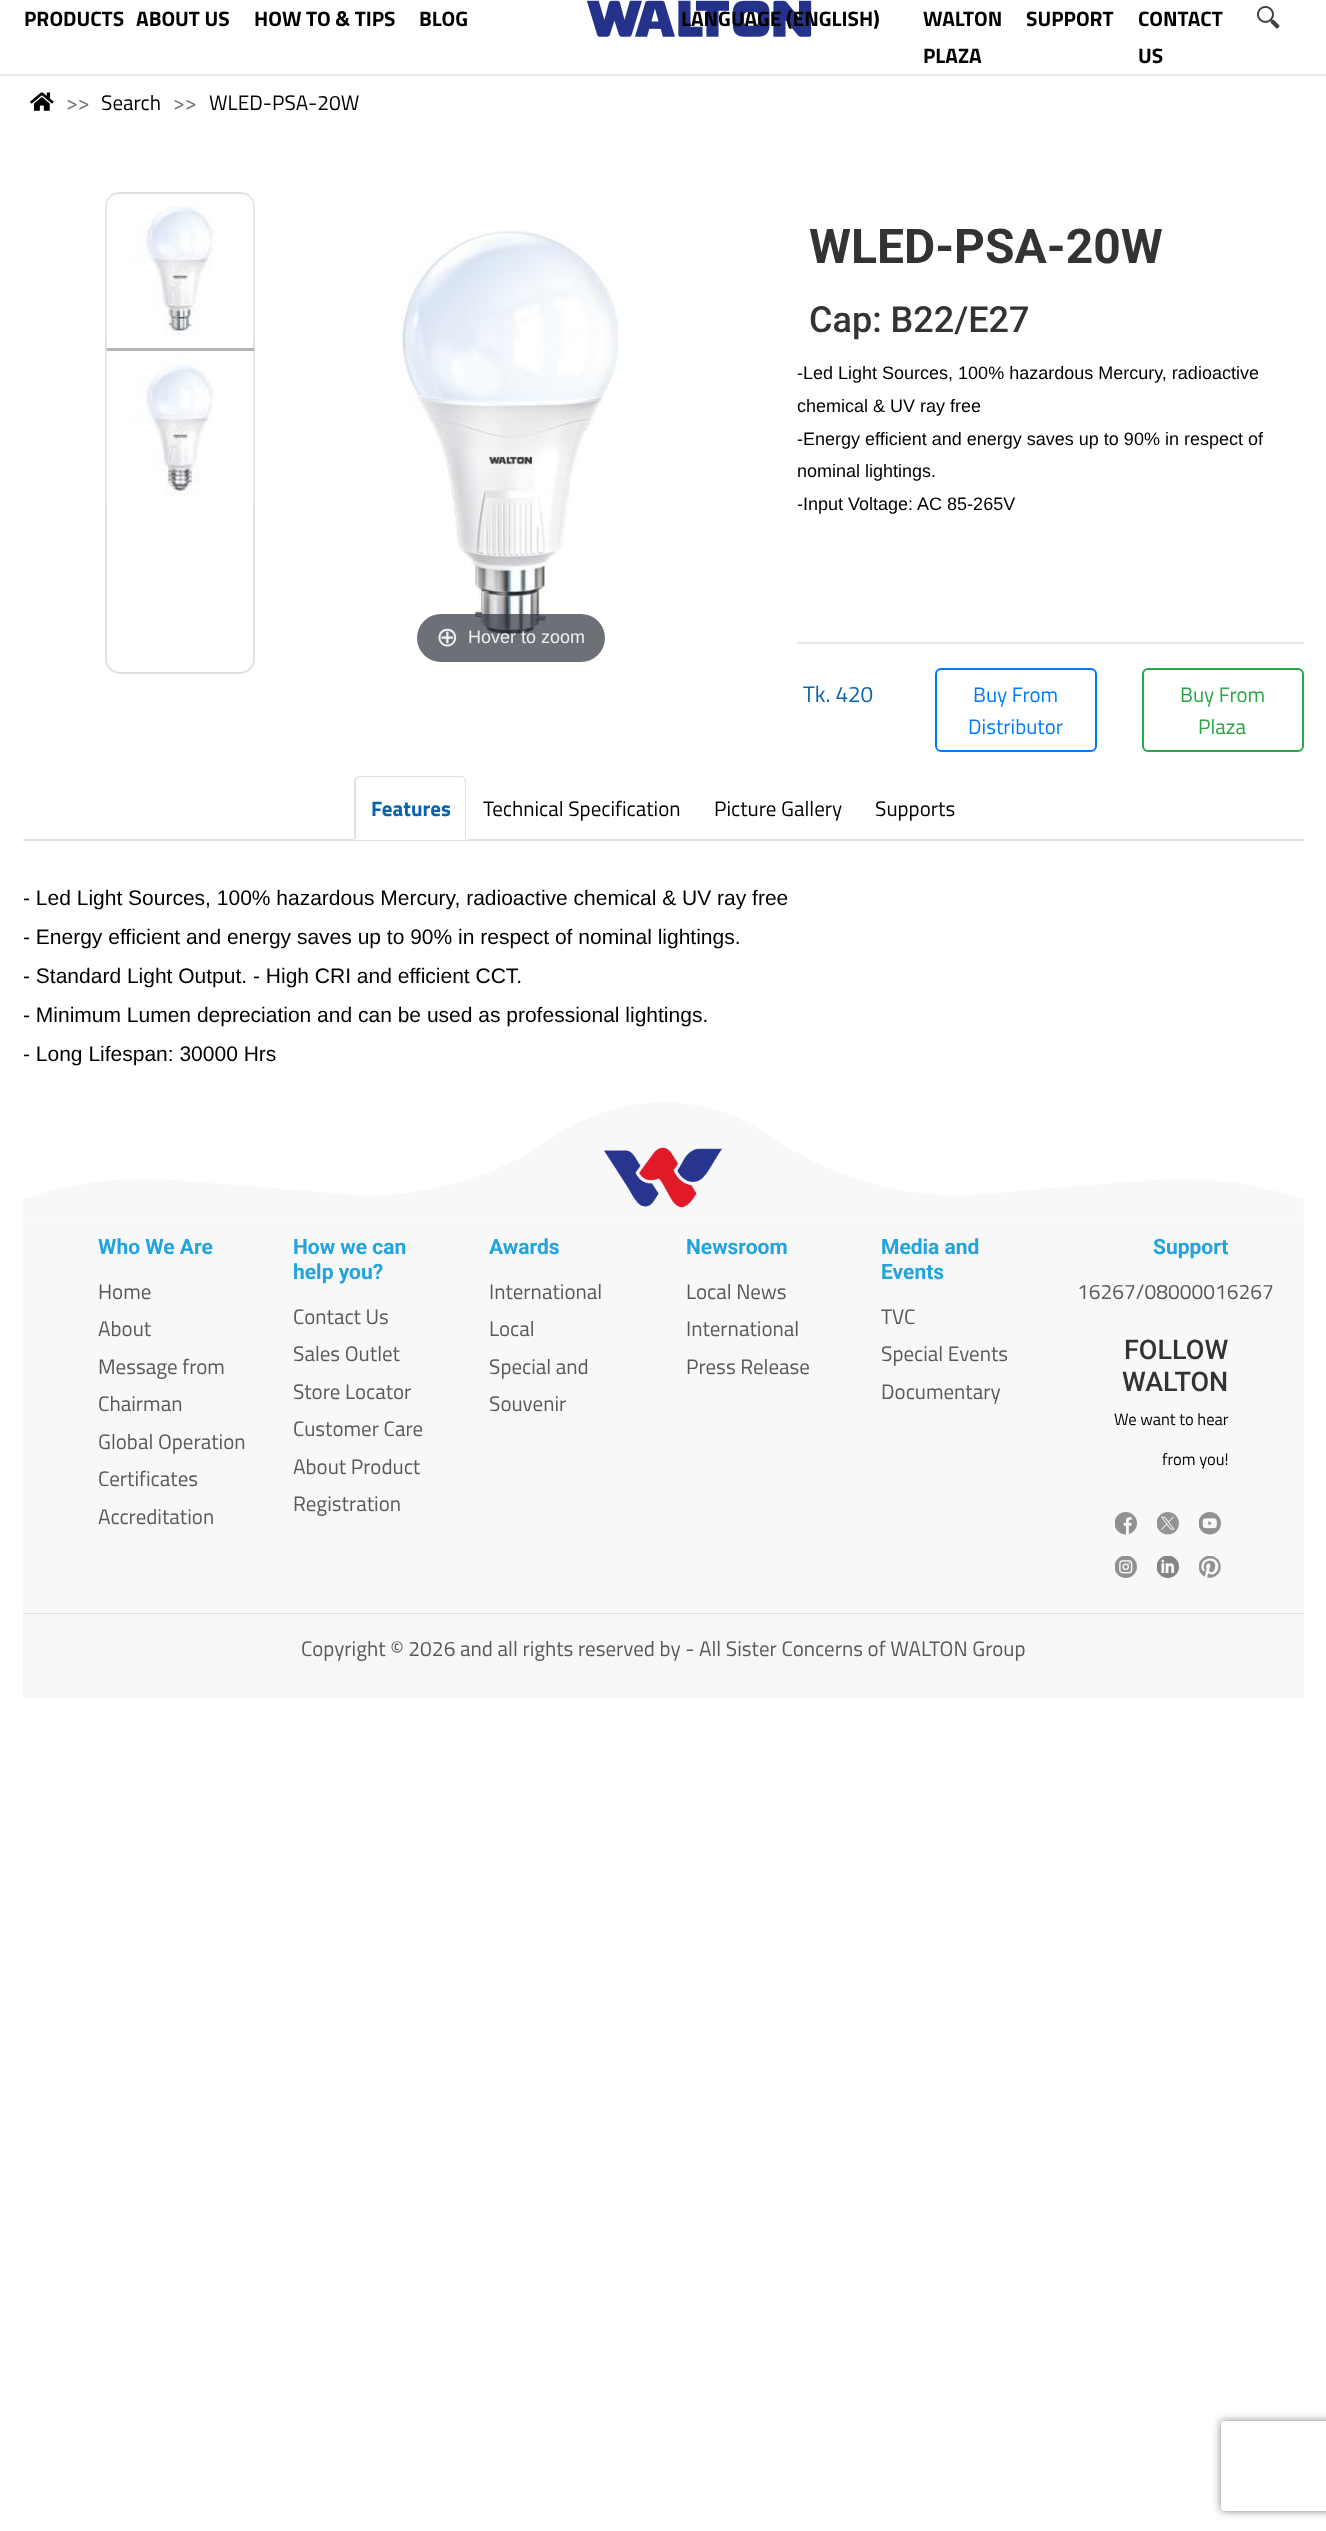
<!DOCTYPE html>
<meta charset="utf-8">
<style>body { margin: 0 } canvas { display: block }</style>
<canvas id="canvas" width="1326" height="2531"></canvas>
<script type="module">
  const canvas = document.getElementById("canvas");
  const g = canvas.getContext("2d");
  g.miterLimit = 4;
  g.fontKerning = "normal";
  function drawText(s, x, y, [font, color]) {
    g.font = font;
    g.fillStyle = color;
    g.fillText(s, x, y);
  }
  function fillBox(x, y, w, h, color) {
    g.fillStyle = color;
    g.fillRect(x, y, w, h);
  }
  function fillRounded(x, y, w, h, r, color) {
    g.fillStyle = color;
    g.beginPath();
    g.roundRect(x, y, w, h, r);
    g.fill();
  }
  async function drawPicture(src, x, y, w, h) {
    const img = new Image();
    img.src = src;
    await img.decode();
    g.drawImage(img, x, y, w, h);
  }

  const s1 = ["bold 21px Titillium Web", "#000000"];
  const s2 = ["21px Titillium Web", "#6C757D"];
  const s3 = ["21px Titillium Web", "#000000"];
  const s4 = ["27px DejaVu Sans", "#EEEEEE"];
  const s5 = ["18px Liberation Sans", "#EEEEEE"];
  const s6 = ["bold 48px Roboto", "#333333"];
  const s7 = ["500 36px Roboto", "#333333"];
  const s8 = ["18px Liberation Sans", "#000000"];
  const s9 = ["22.5px Titillium Web", "#0862AE"];
  const s10 = ["21px Titillium Web", "#007BFF"];
  const s11 = ["21px Titillium Web", "#28A745"];
  const s12 = ["bold 21px Titillium Web", "#0862AE"];
  const s13 = ["21px Liberation Sans", "#000000"];
  const s14 = ["bold 21px Roboto", "#23A3DD"];
  const s15 = ["21px Titillium Web", "#59595C"];
  const s16 = ["500 27px Roboto", "#333333"];
  const s17 = ["16.5px Titillium Web", "#000000"];

  fillBox(0, 0, 1326, 2531, "#FFFFFF");
  fillBox(0, 74, 1326, 2, "#E7E7E7");
  await drawPicture("pic1.png", 586, 0, 226, 37);
  drawText("PRODUCTS", 24, 26, s1);
  drawText("ABOUT US", 136, 26, s1);
  drawText("HOW TO & TIPS", 254, 26, s1);
  drawText("BLOG", 419, 26, s1);
  drawText("LANGUAGE (ENGLISH)", 681, 26, s1);
  drawText("WALTON", 923, 26, s1);
  drawText("PLAZA", 923, 63, s1);
  drawText("SUPPORT", 1026, 26, s1);
  drawText("CONTACT", 1138, 26, s1);
  drawText("US", 1138, 63, s1);
  await drawPicture("pic2.png", 1257, 6, 23, 23);
  await drawPicture("pic3.png", 30, 92, 24, 19);
  drawText(">>", 66, 110, s2);
  drawText("Search", 101, 110, s3);
  drawText(">>", 173, 110, s2);
  drawText("WLED-PSA-20W", 209, 110, s3);
  g.beginPath();
  g.roundRect(106, 193, 148, 480, 14);
  g.strokeStyle = "#E1E1E1";
  g.lineWidth = 2;
  g.stroke();
  fillBox(107, 348, 147, 3, "#B4B4B4");
  await drawPicture("pic4.png", 106, 195, 148, 147);
  await drawPicture("pic5.png", 106, 354, 148, 147);
  await drawPicture("pic6.png", 401, 230, 218, 409);
  fillRounded(417, 614, 188, 48, 24, "rgba(49, 51, 61, 0.7)");
  drawText("⊕", 436, 646, s4);
  drawText("Hover to zoom", 468, 643, s5);
  drawText("WLED-PSA-20W", 809, 263, s6);
  drawText("Cap: B22/E27", 809, 332, s7);
  drawText("-Led Light Sources, 100% hazardous Mercury, radioactive", 797, 379, s8);
  drawText("chemical & UV ray free", 797, 412, s8);
  drawText("-Energy efficient and energy saves up to 90% in respect of", 797, 445, s8);
  drawText("nominal lightings.", 797, 477, s8);
  drawText("-Input Voltage: AC 85-265V", 797, 510, s8);
  fillBox(797, 642, 507, 2, "#E6E6E6");
  drawText("Tk. 420", 803, 702, s9);
  g.beginPath();
  g.roundRect(936, 669, 160, 82, 5);
  g.strokeStyle = "#007BFF";
  g.stroke();
  drawText("Buy From", 973, 702, s10);
  drawText("Distributor", 968, 734, s10);
  g.beginPath();
  g.roundRect(1143, 669, 160, 82, 5);
  g.strokeStyle = "#28A745";
  g.stroke();
  drawText("Buy From", 1180, 702, s11);
  drawText("Plaza", 1198, 734, s11);
  fillBox(23, 839, 1281, 2, "#DEE2E6");
  g.fillStyle = "#FFFFFF";
  g.beginPath();
  g.roundRect(354, 776, 113, 64, [6, 6, 0, 0]);
  g.fill();
  g.fillStyle = "#DEE2E6";
  g.beginPath();
  g.moveTo(360, 776);
  g.bezierCurveTo(359, 776, 357, 776, 356, 777);
  g.lineTo(357, 779);
  g.bezierCurveTo(358, 778, 359, 777, 360, 777);
  g.lineTo(460, 777);
  g.bezierCurveTo(462, 777, 463, 778, 464, 778);
  g.bezierCurveTo(464, 776, 462, 776, 460, 776);
  g.closePath();
  g.fill();
  g.beginPath();
  g.moveTo(466, 840);
  g.lineTo(466, 782);
  g.bezierCurveTo(466, 780, 466, 778, 464, 778);
  g.bezierCurveTo(464, 779, 465, 780, 465, 782);
  g.lineTo(465, 838);
  g.lineTo(464, 838);
  g.closePath();
  g.fill();
  g.fillStyle = "#FFFFFF";
  g.beginPath();
  g.moveTo(466, 840);
  g.lineTo(464, 838);
  g.lineTo(356, 838);
  g.lineTo(354, 840);
  g.closePath();
  g.fill();
  g.fillStyle = "#DEE2E6";
  g.beginPath();
  g.moveTo(354, 840);
  g.lineTo(356, 838);
  g.lineTo(356, 782);
  g.bezierCurveTo(356, 781, 356, 779, 357, 779);
  g.lineTo(356, 777);
  g.bezierCurveTo(355, 778, 354, 780, 354, 782);
  g.closePath();
  g.fill();
  drawText("Features", 371, 816, s12);
  drawText("Technical Specification", 483, 816, s3);
  drawText("Picture Gallery", 714, 816, s3);
  drawText("Supports", 875, 816, s3);
  drawText("- Led Light Sources, 100% hazardous Mercury, radioactive chemical & UV ray free", 23, 905, s13);
  drawText("- Energy efficient and energy saves up to 90% in respect of nominal lightings.", 23, 944, s13);
  drawText("- Standard Light Output. - High CRI and efficient CCT.", 23, 983, s13);
  drawText("- Minimum Lumen depreciation and can be used as professional lightings.", 23, 1022, s13);
  drawText("- Long Lifespan: 30000 Hrs", 23, 1061, s13);
  await drawPicture("pic7.png", 22, 1102, 1282, 118);
  fillBox(23, 1220, 1281, 393, "#F8F8F9");
  drawText("Who We Are", 98, 1254, s14);
  drawText("Home", 98, 1299, s15);
  drawText("About", 98, 1336, s15);
  drawText("Message from", 98, 1374, s15);
  drawText("Chairman", 98, 1411, s15);
  drawText("Global Operation", 98, 1449, s15);
  drawText("Certificates", 98, 1486, s15);
  drawText("Accreditation", 98, 1524, s15);
  drawText("How we can", 293, 1254, s14);
  drawText("help you?", 293, 1279, s14);
  drawText("Contact Us", 293, 1324, s15);
  drawText("Sales Outlet", 293, 1361, s15);
  drawText("Store Locator", 293, 1399, s15);
  drawText("Customer Care", 293, 1436, s15);
  drawText("About Product", 293, 1474, s15);
  drawText("Registration", 293, 1511, s15);
  drawText("Awards", 489, 1254, s14);
  drawText("International", 489, 1299, s15);
  drawText("Local", 489, 1336, s15);
  drawText("Special and", 489, 1374, s15);
  drawText("Souvenir", 489, 1411, s15);
  drawText("Newsroom", 686, 1254, s14);
  drawText("Local News", 686, 1299, s15);
  drawText("International", 686, 1336, s15);
  drawText("Press Release", 686, 1374, s15);
  drawText("Media and", 881, 1254, s14);
  drawText("Events", 881, 1279, s14);
  drawText("TVC", 881, 1324, s15);
  drawText("Special Events", 881, 1361, s15);
  drawText("Documentary", 881, 1399, s15);
  drawText("Support", 1153, 1254, s14);
  drawText("16267/08000016267", 1077, 1299, s15);
  drawText("FOLLOW", 1124, 1359, s16);
  drawText("WALTON", 1122, 1391, s16);
  drawText("We want to hear", 1114, 1425, s17);
  drawText("from you!", 1162, 1465, s17);
  await drawPicture("pic8.png", 1115, 1512, 22, 23);
  await drawPicture("pic9.png", 1157, 1512, 22, 23);
  await drawPicture("pic10.png", 1199, 1512, 22, 23);
  await drawPicture("pic11.png", 1115, 1556, 22, 22);
  await drawPicture("pic12.png", 1157, 1556, 22, 22);
  await drawPicture("pic13.png", 1199, 1556, 22, 22);
  fillBox(23, 1613, 1281, 1, "#DDDDDD");
  fillBox(23, 1614, 1281, 84, "#F7F7F7");
  drawText("Copyright © 2026 and all rights reserved by - All Sister Concerns of WALTON Group", 301, 1656, s15);
  g.save();
  g.beginPath();
  g.moveTo(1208, 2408);
  g.lineTo(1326, 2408);
  g.lineTo(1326, 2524);
  g.lineTo(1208, 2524);
  g.closePath();
  g.moveTo(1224, 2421);
  g.lineTo(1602, 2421);
  g.bezierCurveTo(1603.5, 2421, 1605, 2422.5, 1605, 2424);
  g.lineTo(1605, 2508);
  g.bezierCurveTo(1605, 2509.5, 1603.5, 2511, 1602, 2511);
  g.lineTo(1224, 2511);
  g.bezierCurveTo(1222.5, 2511, 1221, 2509.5, 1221, 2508);
  g.lineTo(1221, 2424);
  g.bezierCurveTo(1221, 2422.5, 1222.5, 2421, 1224, 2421);
  g.closePath();
  g.clip("evenodd");
  g.fillStyle = "#808080";
  g.filter = "blur(4px)";
  g.beginPath();
  g.roundRect(1221, 2421, 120, 90, 3);
  g.fill();
  g.filter = "none";
  g.restore();
</script>
